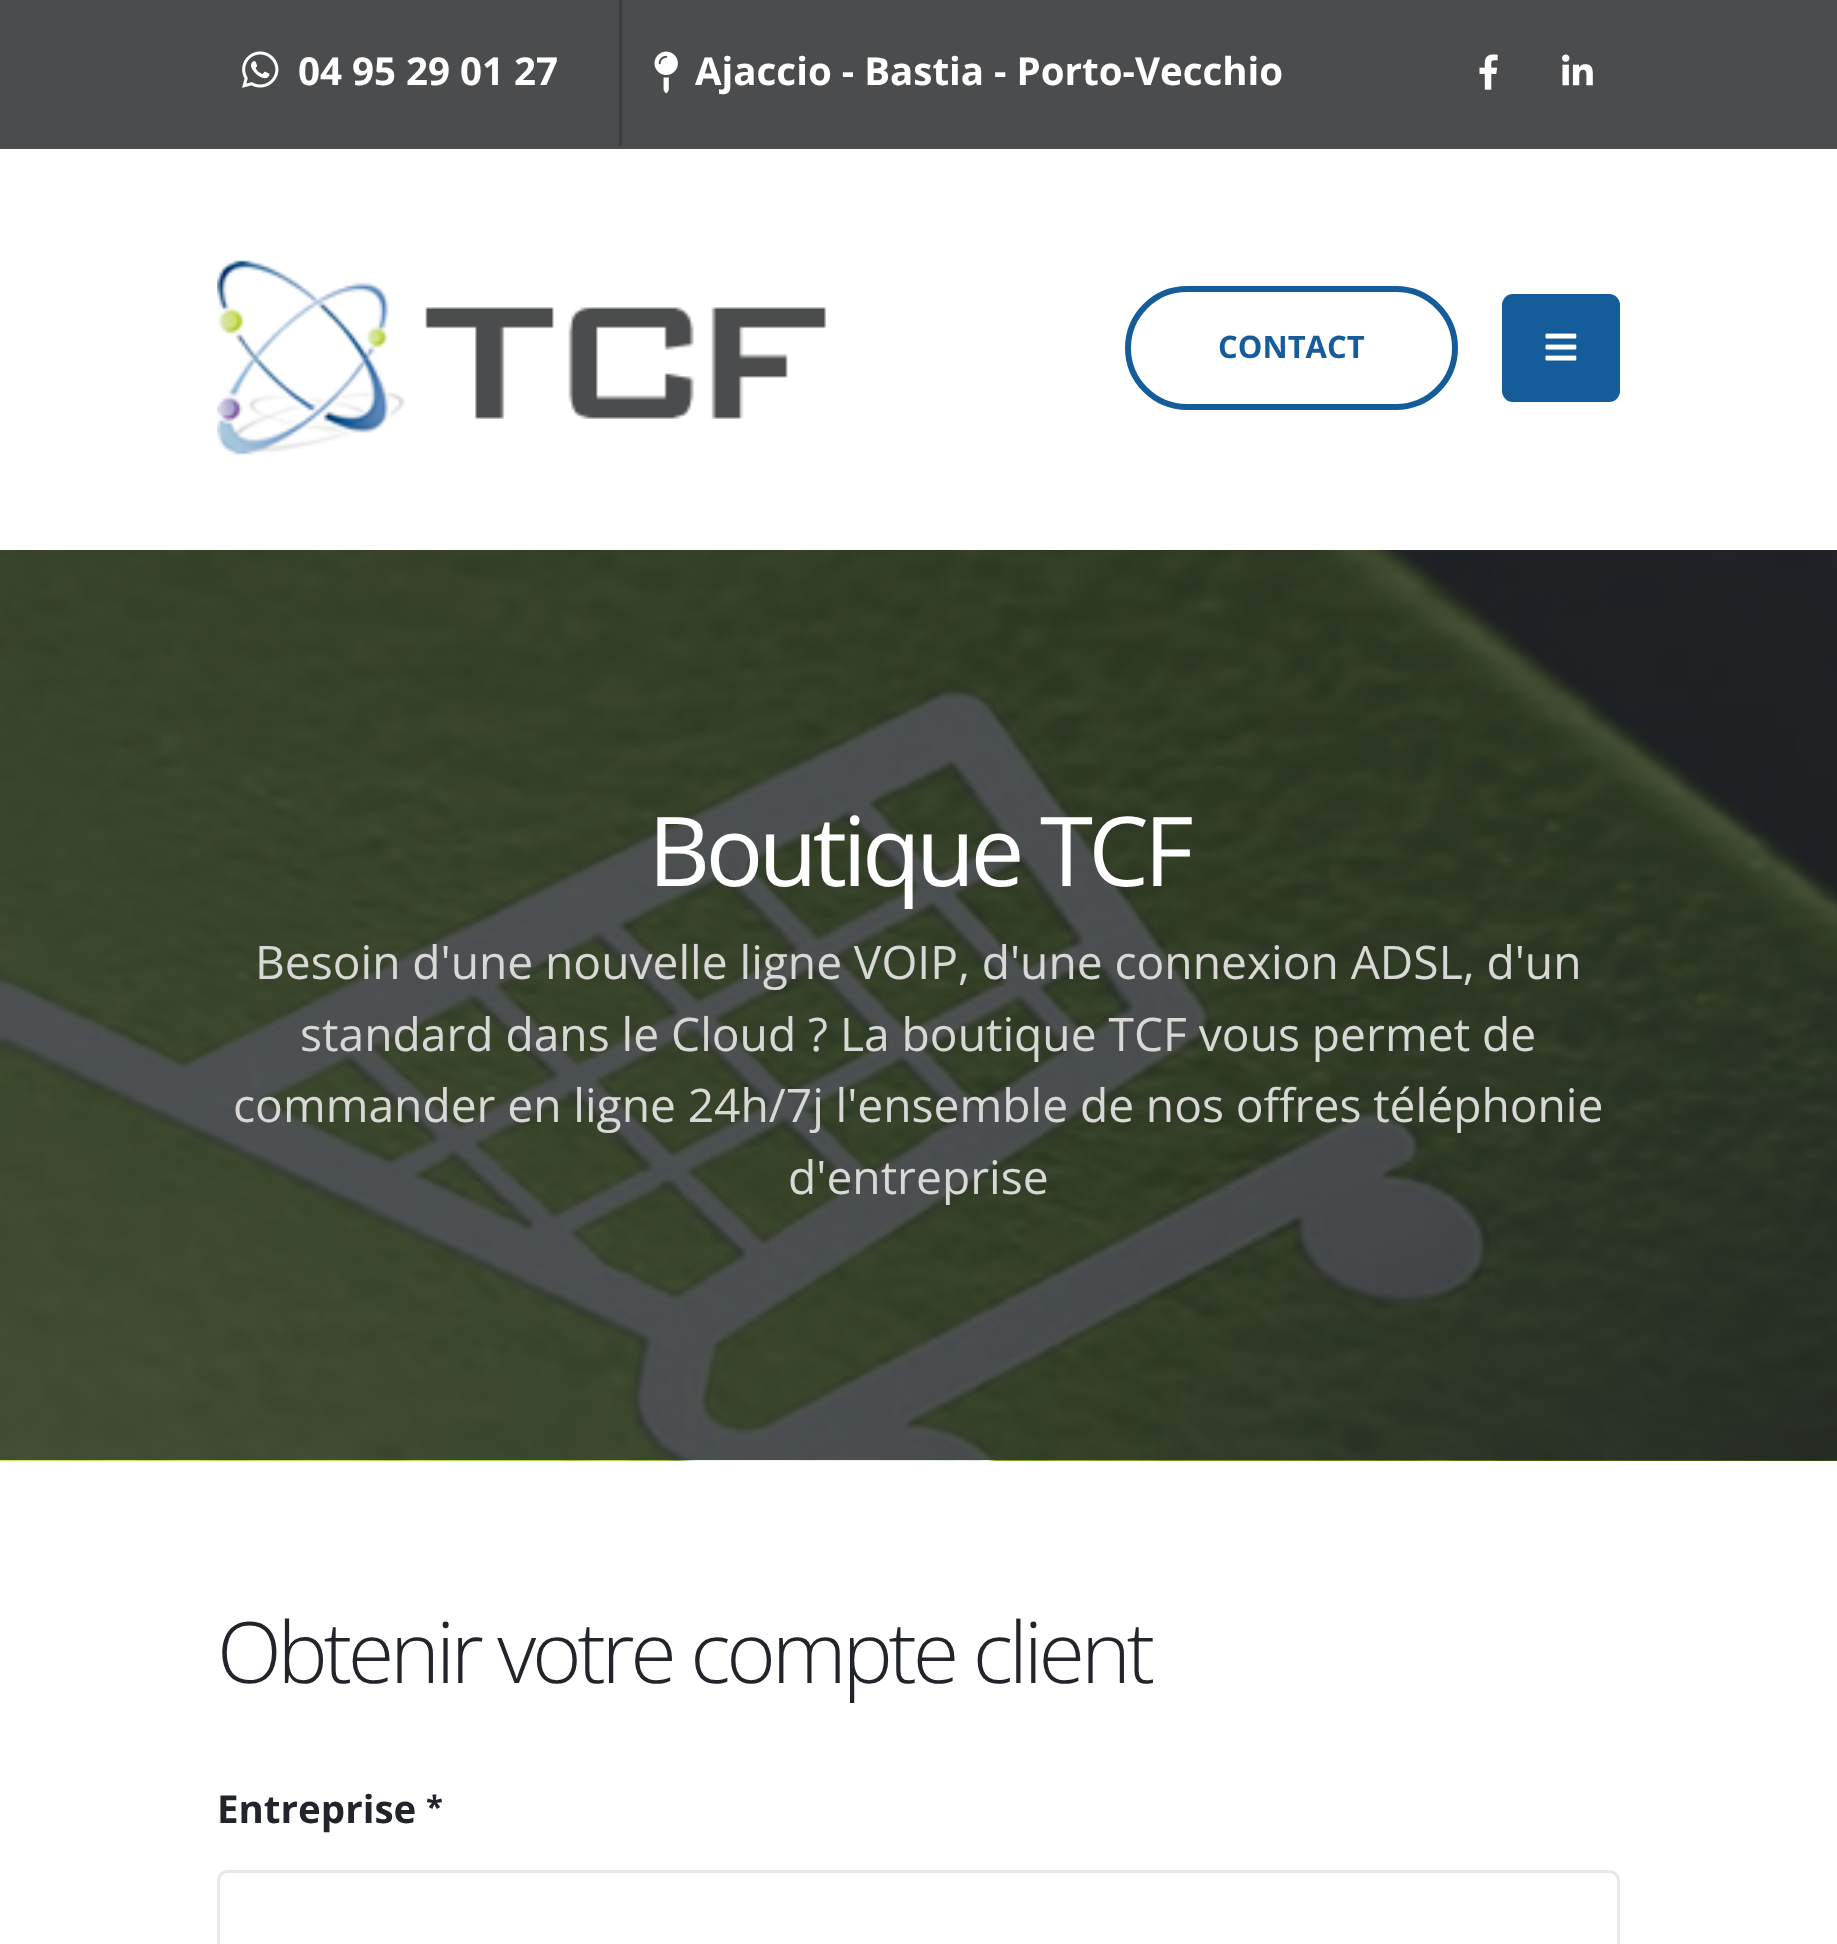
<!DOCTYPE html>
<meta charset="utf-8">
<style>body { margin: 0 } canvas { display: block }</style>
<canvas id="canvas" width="1837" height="1944"></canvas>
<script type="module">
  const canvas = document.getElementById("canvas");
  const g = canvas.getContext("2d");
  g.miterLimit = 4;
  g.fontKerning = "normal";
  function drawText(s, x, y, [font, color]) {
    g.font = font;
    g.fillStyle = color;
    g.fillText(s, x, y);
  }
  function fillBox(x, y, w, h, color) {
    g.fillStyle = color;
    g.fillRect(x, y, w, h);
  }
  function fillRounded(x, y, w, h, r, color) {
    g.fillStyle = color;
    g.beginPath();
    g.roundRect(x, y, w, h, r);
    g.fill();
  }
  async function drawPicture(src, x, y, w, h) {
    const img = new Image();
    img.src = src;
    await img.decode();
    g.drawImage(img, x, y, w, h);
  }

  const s1 = ["bold 38.5px Open Sans", "#FFFFFF"];
  const s2 = ["bold 31px Open Sans", "#155C9A"];
  const s3 = ["96.25px Open Sans", "#FFFFFF"];
  const s4 = ["46.2px Open Sans", "#D8D9D6"];
  const s5 = ["300 84.75px Open Sans", "#212529"];
  const s6 = ["bold 38.5px Open Sans", "#212529"];
  const s7 = ["bold 31px Open Sans", "#212529"];

  fillBox(0, 0, 1837, 1944, "#FFFFFF");
  fillBox(0, 0, 1837, 149, "#4B4C4D");
  fillBox(619, 0, 3, 146, "#3E3E3E");
  await drawPicture("pic1.png", 242, 51, 37, 37);
  drawText("04 95 29 01 27", 298, 85, s1);
  await drawPicture("pic2.png", 654, 51, 24, 43);
  drawText("Ajaccio - Bastia - Porto-Vecchio", 695, 85, s1);
  await drawPicture("pic3.png", 1479, 54, 19, 36);
  await drawPicture("pic4.png", 1562, 54, 31, 32);
  await drawPicture("pic5.png", 217, 260, 609, 195);
  g.beginPath();
  g.roundRect(1128, 289, 327, 118, 59);
  g.strokeStyle = "#155C9A";
  g.lineWidth = 6;
  g.stroke();
  drawText("CONTACT", 1218, 358, s2);
  fillRounded(1502, 294, 118, 108, 11, "#155C9A");
  await drawPicture("pic6.png", 1545, 333, 32, 28);
  await drawPicture("pic7.png", 0, 550, 1837, 911);
  g.letterSpacing = "-4.75px";
  drawText("Boutique TCF", 648, 886, s3);
  g.letterSpacing = "0px";
  g.wordSpacing = "-0.25px";
  drawText("Besoin d'une nouvelle ligne VOIP, d'une connexion ADSL, d'un", 255, 979, s4);
  g.wordSpacing = "-0.1px";
  drawText("standard dans le Cloud ? La boutique TCF vous permet de", 300, 1051, s4);
  g.wordSpacing = "-0.25px";
  drawText("commander en ligne 24h/7j l'ensemble de nos offres téléphonie", 233, 1122, s4);
  g.wordSpacing = "0px";
  drawText("d'entreprise", 788, 1194, s4);
  g.letterSpacing = "-4.25px";
  drawText("Obtenir votre compte client", 217, 1683, s5);
  g.letterSpacing = "0px";
  drawText("Entreprise", 217, 1823, s6);
  drawText("*", 426, 1818, s7);
  g.beginPath();
  g.roundRect(218.5, 1871.5, 1400, 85, 9.5);
  g.strokeStyle = "#E8E8E8";
  g.lineWidth = 3;
  g.stroke();
</script>
